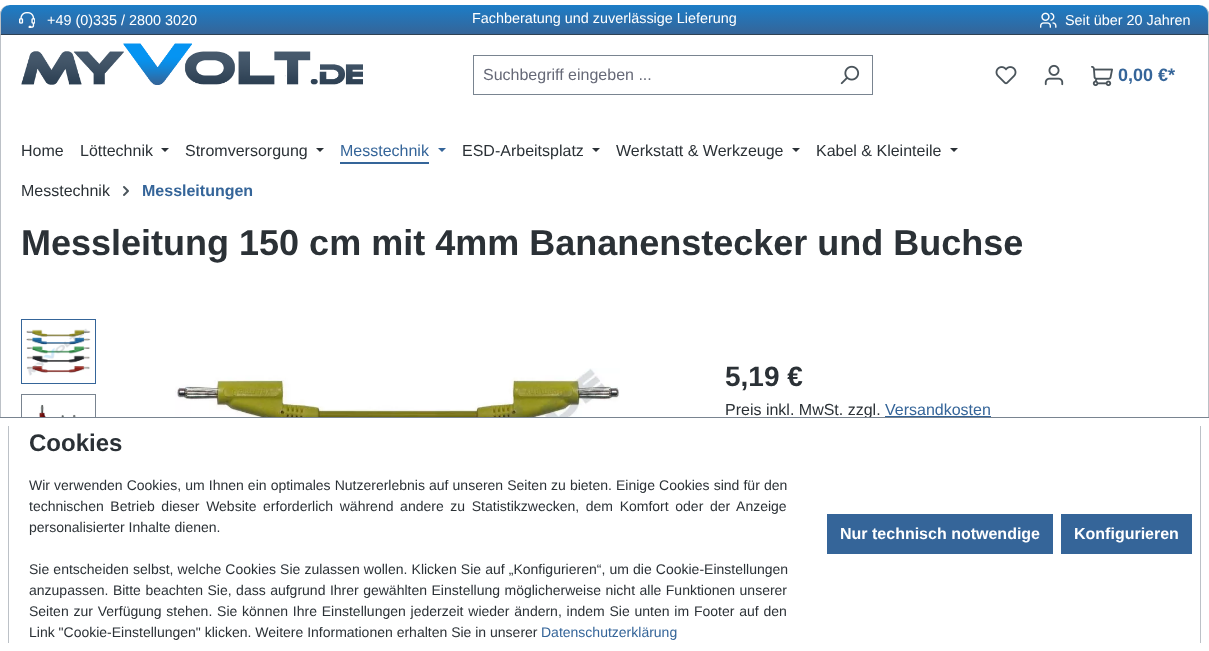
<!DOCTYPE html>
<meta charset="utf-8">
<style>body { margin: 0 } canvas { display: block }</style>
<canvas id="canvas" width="1209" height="651"></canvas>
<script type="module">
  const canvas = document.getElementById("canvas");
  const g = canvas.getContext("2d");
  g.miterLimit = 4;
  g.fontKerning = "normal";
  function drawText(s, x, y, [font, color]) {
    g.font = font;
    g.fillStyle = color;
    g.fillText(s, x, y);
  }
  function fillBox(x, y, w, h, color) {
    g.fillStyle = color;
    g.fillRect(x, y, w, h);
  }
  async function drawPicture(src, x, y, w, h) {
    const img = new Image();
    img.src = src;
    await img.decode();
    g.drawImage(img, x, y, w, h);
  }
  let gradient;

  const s1 = ["14.4px Liberation Sans", "#FFFFFF"];
  const s2 = ["16px Liberation Sans", "#666977"];
  const s3 = ["bold 18px Liberation Sans", "#356599"];
  const s4 = ["16px Liberation Sans", "#2B3136"];
  const s5 = ["16px Liberation Sans", "#356599"];
  const s6 = ["bold 16px Liberation Sans", "#356599"];
  const s7 = ["bold 36px Liberation Sans", "#2B3136"];
  const s8 = ["bold 28px Liberation Sans", "#2B3136"];
  const s9 = ["bold 24px Liberation Sans", "#2B3136"];
  const s10 = ["14px Liberation Sans", "#2B3136"];
  const s11 = ["14px Liberation Sans", "#356599"];
  const s12 = ["bold 16px Liberation Sans", "#FFFFFF"];

  fillBox(0, 0, 1209, 651, "#FFFFFF");
  gradient = g.createLinearGradient(605, 34, 605, 5);
  gradient.addColorStop(0, "#356599");
  gradient.addColorStop(1, "#1C7DC7");
  g.fillStyle = gradient;
  g.beginPath();
  g.roundRect(0, 5, 1209, 29, [10, 10, 0, 0]);
  g.fill();
  g.fillStyle = "#BCC1C7";
  g.beginPath();
  g.moveTo(1209, 15);
  g.bezierCurveTo(1209, 9, 1205, 5, 1199, 5);
  g.bezierCurveTo(1204, 5, 1208, 9, 1208, 15);
  g.lineTo(1208, 34);
  g.lineTo(1209, 35);
  g.closePath();
  g.fill();
  g.fillStyle = "#2E4154";
  g.beginPath();
  g.moveTo(1209, 35);
  g.lineTo(0, 35);
  g.lineTo(1, 34);
  g.lineTo(1208, 34);
  g.closePath();
  g.fill();
  g.fillStyle = "#BCC1C7";
  g.beginPath();
  g.moveTo(10, 5);
  g.bezierCurveTo(4, 5, 0, 9, 0, 15);
  g.lineTo(0, 35);
  g.lineTo(1, 34);
  g.lineTo(1, 15);
  g.bezierCurveTo(1, 9, 5, 5, 10, 5);
  g.closePath();
  g.fill();
  await drawPicture("pic1.png", 19, 12, 16, 16);
  drawText("+49 (0)335 / 2800 3020", 47, 25, s1);
  drawText("Fachberatung und zuverlässige Lieferung", 472, 23, s1);
  await drawPicture("pic2.png", 1040, 12, 17, 16);
  drawText("Seit über 20 Jahren", 1065, 25, s1);
  fillBox(1208, 35, 1, 382, "#BCC1C7");
  fillBox(0, 35, 1, 382, "#BCC1C7");
  await drawPicture("pic3.png", 21, 43, 342, 42);
  fillBox(473, 55, 400, 1, "#798490");
  fillBox(473, 94, 354, 1, "#798490");
  fillBox(473, 55, 1, 40, "#798490");
  drawText("Suchbegriff eingeben ...", 483, 80, s2);
  fillBox(872, 55, 1, 40, "#798490");
  fillBox(826, 94, 47, 1, "#798490");
  await drawPicture("pic4.png", 840, 65, 20, 20);
  await drawPicture("pic5.png", 995, 66, 22, 19);
  await drawPicture("pic6.png", 1044, 64, 20, 22);
  await drawPicture("pic7.png", 1091, 66, 22, 21);
  drawText("0,00 €*", 1118, 81, s3);
  drawText("Home", 21, 156, s4);
  drawText("Löttechnik", 80, 156, s4);
  g.beginPath();
  g.moveTo(161, 148);
  g.lineTo(169, 148);
  g.lineTo(165, 152);
  g.closePath();
  g.fill();
  drawText("Stromversorgung", 185, 156, s4);
  g.beginPath();
  g.moveTo(316, 148);
  g.lineTo(324, 148);
  g.lineTo(320, 152);
  g.closePath();
  g.fill();
  drawText("Messtechnik", 340, 156, s5);
  fillBox(340, 162, 89, 2, "#356599");
  g.beginPath();
  g.moveTo(438, 148);
  g.lineTo(446, 148);
  g.lineTo(442, 152);
  g.closePath();
  g.fill();
  drawText("ESD-Arbeitsplatz", 462, 156, s4);
  g.beginPath();
  g.moveTo(592, 148);
  g.lineTo(600, 148);
  g.lineTo(596, 152);
  g.closePath();
  g.fill();
  drawText("Werkstatt & Werkzeuge", 616, 156, s4);
  g.beginPath();
  g.moveTo(792, 148);
  g.lineTo(800, 148);
  g.lineTo(796, 152);
  g.closePath();
  g.fill();
  drawText("Kabel & Kleinteile", 816, 156, s4);
  g.beginPath();
  g.moveTo(950, 148);
  g.lineTo(958, 148);
  g.lineTo(954, 152);
  g.closePath();
  g.fill();
  drawText("Messtechnik", 21, 196, s4);
  await drawPicture("pic8.png", 123, 186, 6, 10);
  drawText("Messleitungen", 142, 196, s6);
  drawText("Messleitung 150 cm mit 4mm Bananenstecker und Buchse", 21, 255, s7);
  g.strokeStyle = "#356599";
  g.strokeRect(21.5, 319.5, 74, 64);
  await drawPicture("pic9.png", 26, 328, 65, 48);
  g.strokeStyle = "#798490";
  g.strokeRect(21.5, 394.5, 74, 64);
  await drawPicture("pic10.png", 34, 404, 50, 13);
  await drawPicture("pic11.png", 175, 368, 445, 49);
  drawText("5,19 €", 725, 386, s8);
  drawText("Preis inkl. MwSt. zzgl.", 725, 415, s4);
  drawText("Versandkosten", 885, 415, s5);
  fillBox(885, 416, 106, 1, "#356599");
  fillBox(21, 418, 849, 41, "#FFFFFF");
  fillBox(0, 417, 1209, 1, "#798490");
  fillBox(1200, 426, 1, 217, "#BCC1C7");
  fillBox(8, 426, 1, 217, "#BCC1C7");
  drawText("Cookies", 29, 451, s9);
  g.wordSpacing = "0.2px";
  drawText("Wir verwenden Cookies, um Ihnen ein optimales Nutzererlebnis auf unseren Seiten zu bieten. Einige Cookies sind für den", 29, 490, s10);
  g.wordSpacing = "2.75px";
  drawText("technischen Betrieb dieser Website erforderlich während andere zu Statistikzwecken, dem Komfort oder der Anzeige", 29, 511, s10);
  g.wordSpacing = "0px";
  drawText("personalisierter Inhalte dienen.", 29, 532, s10);
  g.wordSpacing = "0.25px";
  drawText("Sie entscheiden selbst, welche Cookies Sie zulassen wollen. Klicken Sie auf „Konfigurieren“, um die Cookie-Einstellungen", 29, 574, s10);
  g.wordSpacing = "0.6px";
  drawText("anzupassen. Bitte beachten Sie, dass aufgrund Ihrer gewählten Einstellung möglicherweise nicht alle Funktionen unserer", 29, 595, s10);
  g.wordSpacing = "0.9px";
  drawText("Seiten zur Verfügung stehen. Sie können Ihre Einstellungen jederzeit wieder ändern, indem Sie unten im Footer auf den", 29, 616, s10);
  g.wordSpacing = "0px";
  drawText("Link \"Cookie-Einstellungen\" klicken. Weitere Informationen erhalten Sie in unserer", 29, 637, s10);
  drawText("Datenschutzerklärung", 541, 637, s11);
  fillBox(827, 514, 226, 40, "#356599");
  drawText("Nur technisch notwendige", 840, 539, s12);
  fillBox(1061, 514, 131, 40, "#356599");
  drawText("Konfigurieren", 1074, 539, s12);
</script>
